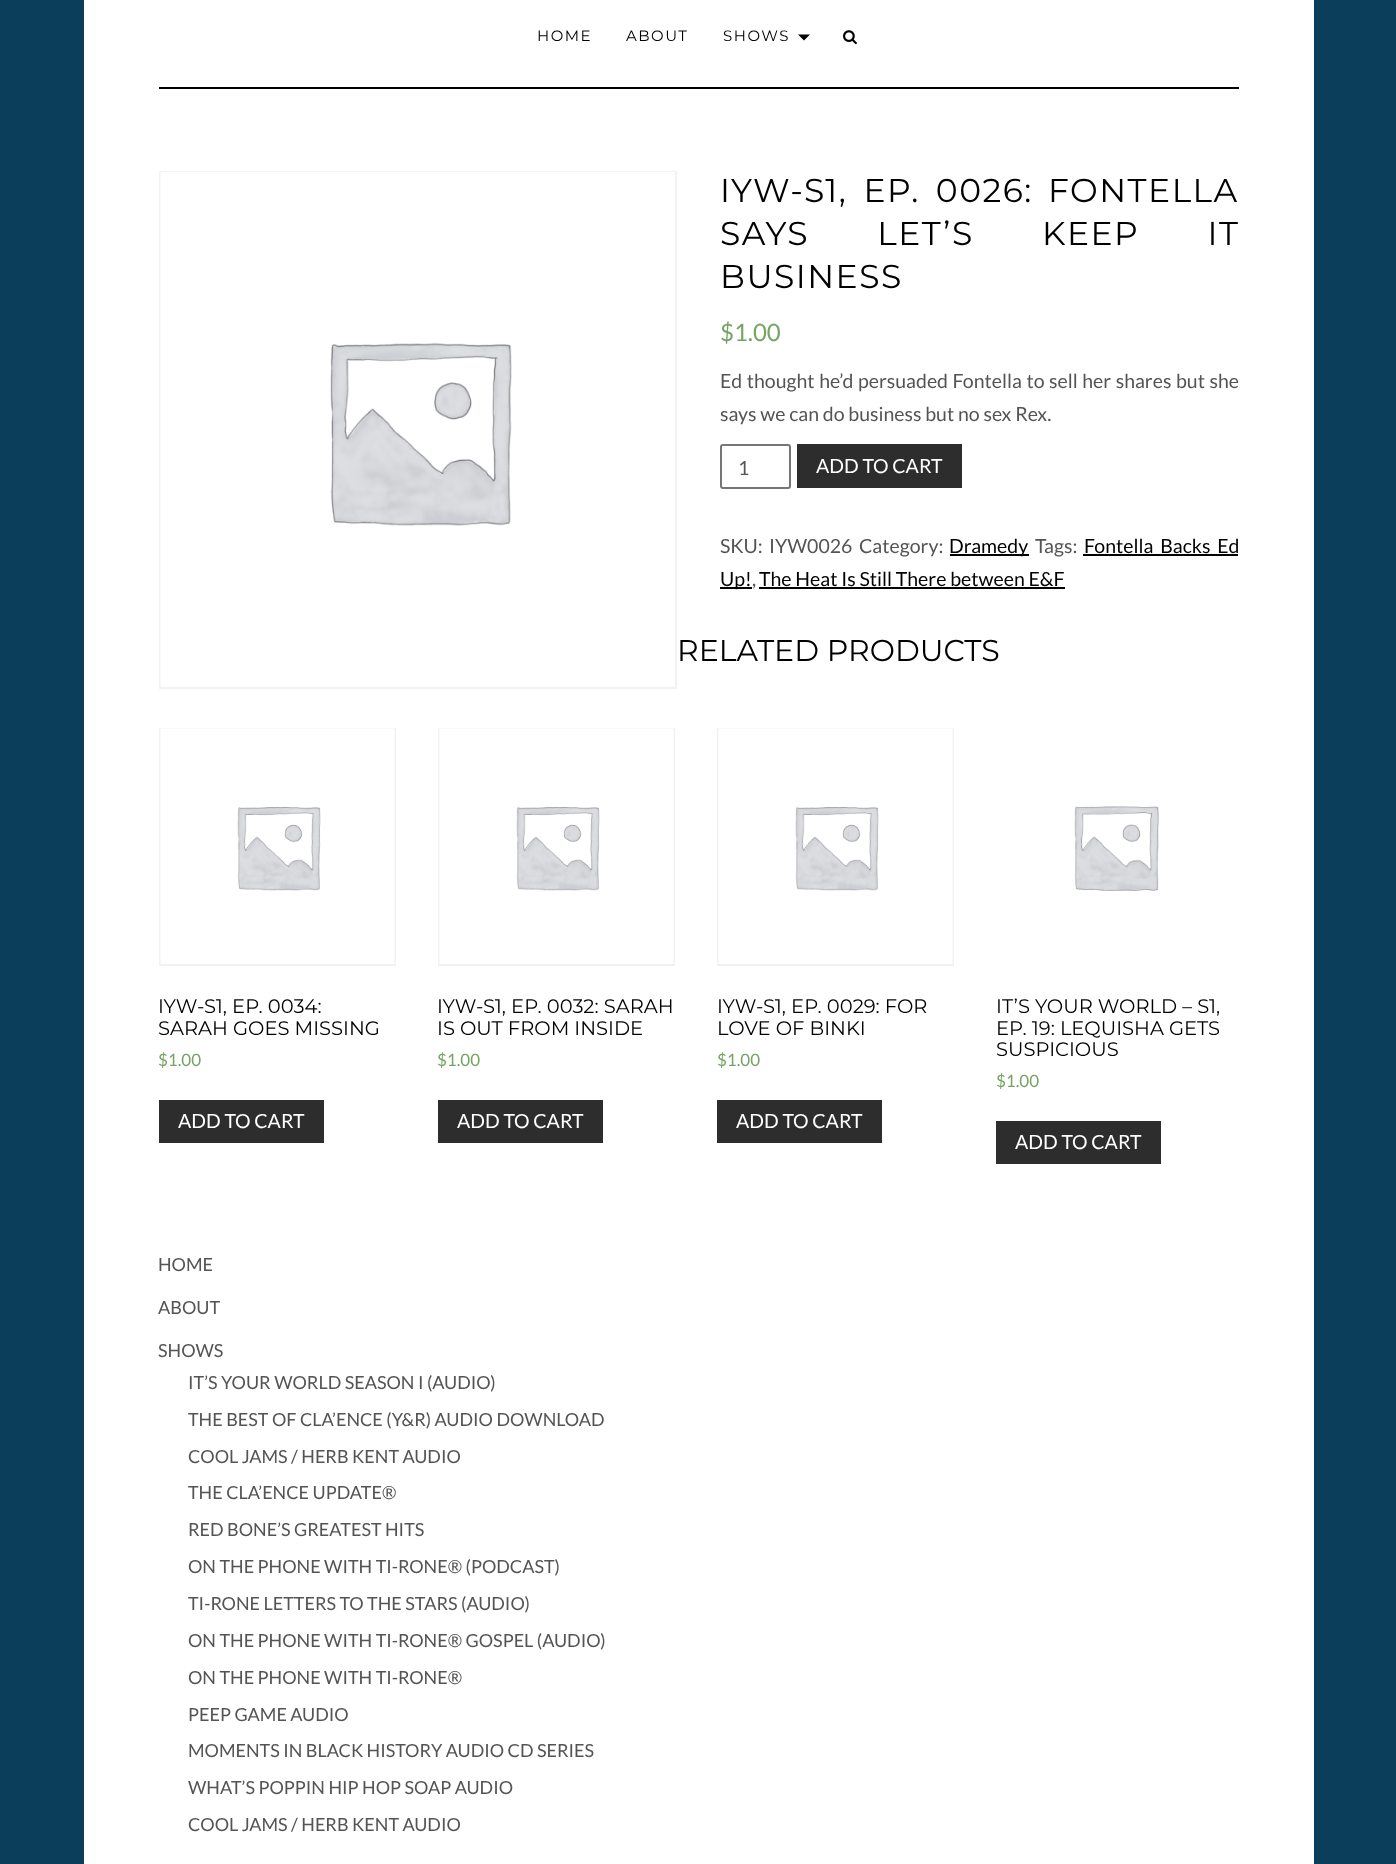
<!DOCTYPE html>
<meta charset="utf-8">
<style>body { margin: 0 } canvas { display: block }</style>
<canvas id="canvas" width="1396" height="1864"></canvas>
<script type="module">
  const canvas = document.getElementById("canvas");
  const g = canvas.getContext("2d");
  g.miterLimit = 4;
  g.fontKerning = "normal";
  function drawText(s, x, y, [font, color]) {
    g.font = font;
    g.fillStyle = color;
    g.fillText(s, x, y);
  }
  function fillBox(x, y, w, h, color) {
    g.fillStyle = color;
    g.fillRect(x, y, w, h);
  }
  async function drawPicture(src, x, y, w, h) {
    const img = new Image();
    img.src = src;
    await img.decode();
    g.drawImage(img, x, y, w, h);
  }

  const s1 = ["15px Montserrat", "#000000"];
  const s2 = ["33px Montserrat", "#000000"];
  const s3 = ["24px Lato", "#77A464"];
  const s4 = ["19.5px Lato", "#545454"];
  const s5 = ["19.5px Lato", "#FFFFFF"];
  const s6 = ["19.5px Lato", "#000000"];
  const s7 = ["30px Montserrat", "#000000"];
  const s8 = ["19.5px Montserrat", "#000000"];
  const s9 = ["17px Lato", "#77A464"];
  const s10 = ["18px Lato", "#545454"];

  fillBox(0, 0, 1396, 1864, "#0B3E5B");
  fillBox(84, 0, 1230, 1864, "#FFFFFF");
  fillBox(159, 87, 1080, 2, "#000000");
  g.letterSpacing = "1.5px";
  drawText("HOME", 537, 41, s1);
  drawText("ABOUT", 626, 41, s1);
  drawText("SHOWS", 723, 41, s1);
  g.beginPath();
  g.moveTo(798, 34.5);
  g.lineTo(810, 34.5);
  g.lineTo(804, 40.5);
  g.closePath();
  g.fill();
  await drawPicture("pic1.png", 843, 30, 14, 15);
  g.strokeStyle = "#F2F2F2";
  g.lineWidth = 2;
  g.strokeRect(160, 172, 516, 516);
  await drawPicture("pic2.png", 160, 172, 515, 514);
  g.wordSpacing = "6px";
  drawText("IYW-S1, EP. 0026:", 720, 202, s2);
  g.wordSpacing = "0px";
  drawText("FONTELLA", 1048, 202, s2);
  g.wordSpacing = "58px";
  drawText("SAYS LET’S KEEP IT", 720, 245, s2);
  g.wordSpacing = "0px";
  drawText("BUSINESS", 720, 288, s2);
  g.letterSpacing = "0px";
  drawText("$1.00", 720, 341, s3);
  g.wordSpacing = "0.75px";
  drawText("Ed thought he’d persuaded Fontella to sell her shares but she", 720, 388, s4);
  g.wordSpacing = "0px";
  drawText("says we can do business but no sex Rex.", 720, 421, s4);
  g.beginPath();
  g.roundRect(721, 445, 69, 43, 2);
  g.strokeStyle = "#767676";
  g.stroke();
  drawText("1", 738, 475, s4);
  fillBox(797, 444, 165, 44, "#2D2D2D");
  drawText("ADD TO CART", 816, 473, s5);
  drawText("SKU:", 720, 553, s4);
  drawText("IYW0026", 769, 553, s4);
  drawText("Category:", 859, 553, s4);
  fillBox(950, 554, 79, 2, "#000000");
  drawText("Dramedy", 949, 553, s6);
  drawText("Tags:", 1035, 553, s4);
  g.wordSpacing = "3px";
  drawText("Fontella Backs Ed", 1084, 553, s6);
  fillBox(1083, 554, 155, 2, "#000000");
  fillBox(720, 587, 32, 2, "#000000");
  g.wordSpacing = "0px";
  drawText("Up!", 720, 586, s6);
  drawText(",", 752, 586, s4);
  fillBox(759, 587, 306, 2, "#000000");
  drawText("The Heat Is Still There between E&F", 759, 586, s6);
  drawText("RELATED PRODUCTS", 677, 661, s7);
  g.strokeStyle = "#F2F2F2";
  g.strokeRect(160, 729, 235, 236);
  await drawPicture("pic3.png", 160, 728, 235, 236);
  drawText("IYW-S1, EP. 0034:", 158, 1013, s8);
  drawText("SARAH GOES MISSING", 158, 1035, s8);
  drawText("$1.00", 158, 1066, s9);
  fillBox(159, 1100, 165, 43, "#2D2D2D");
  drawText("ADD TO CART", 178, 1128, s5);
  g.strokeRect(439, 729, 235, 236);
  await drawPicture("pic4.png", 439, 728, 235, 236);
  drawText("IYW-S1, EP. 0032: SARAH", 437, 1013, s8);
  drawText("IS OUT FROM INSIDE", 437, 1035, s8);
  drawText("$1.00", 437, 1066, s9);
  fillBox(438, 1100, 165, 43, "#2D2D2D");
  drawText("ADD TO CART", 457, 1128, s5);
  g.strokeRect(718, 729, 235, 236);
  await drawPicture("pic4.png", 718, 728, 235, 236);
  drawText("IYW-S1, EP. 0029: FOR", 717, 1013, s8);
  drawText("LOVE OF BINKI", 717, 1035, s8);
  drawText("$1.00", 717, 1066, s9);
  fillBox(717, 1100, 165, 43, "#2D2D2D");
  drawText("ADD TO CART", 736, 1128, s5);
  await drawPicture("pic5.png", 1074, 806, 85, 85);
  drawText("IT’S YOUR WORLD – S1,", 996, 1013, s8);
  drawText("EP. 19: LEQUISHA GETS", 996, 1035, s8);
  drawText("SUSPICIOUS", 996, 1056, s8);
  drawText("$1.00", 996, 1087, s9);
  fillBox(996, 1121, 165, 43, "#2D2D2D");
  drawText("ADD TO CART", 1015, 1149, s5);
  drawText("HOME", 158, 1271, s10);
  drawText("ABOUT", 158, 1314, s10);
  drawText("SHOWS", 158, 1357, s10);
  drawText("IT’S YOUR WORLD SEASON I (AUDIO)", 188, 1389, s10);
  drawText("THE BEST OF CLA’ENCE (Y&R) AUDIO DOWNLOAD", 188, 1426, s10);
  drawText("COOL JAMS / HERB KENT AUDIO", 188, 1463, s10);
  drawText("THE CLA’ENCE UPDATE®", 188, 1499, s10);
  drawText("RED BONE’S GREATEST HITS", 188, 1536, s10);
  drawText("ON THE PHONE WITH TI-RONE® (PODCAST)", 188, 1573, s10);
  drawText("TI-RONE LETTERS TO THE STARS (AUDIO)", 188, 1610, s10);
  drawText("ON THE PHONE WITH TI-RONE® GOSPEL (AUDIO)", 188, 1647, s10);
  drawText("ON THE PHONE WITH TI-RONE®", 188, 1684, s10);
  drawText("PEEP GAME AUDIO", 188, 1721, s10);
  drawText("MOMENTS IN BLACK HISTORY AUDIO CD SERIES", 188, 1757, s10);
  drawText("WHAT’S POPPIN HIP HOP SOAP AUDIO", 188, 1794, s10);
  drawText("COOL JAMS / HERB KENT AUDIO", 188, 1831, s10);
</script>
